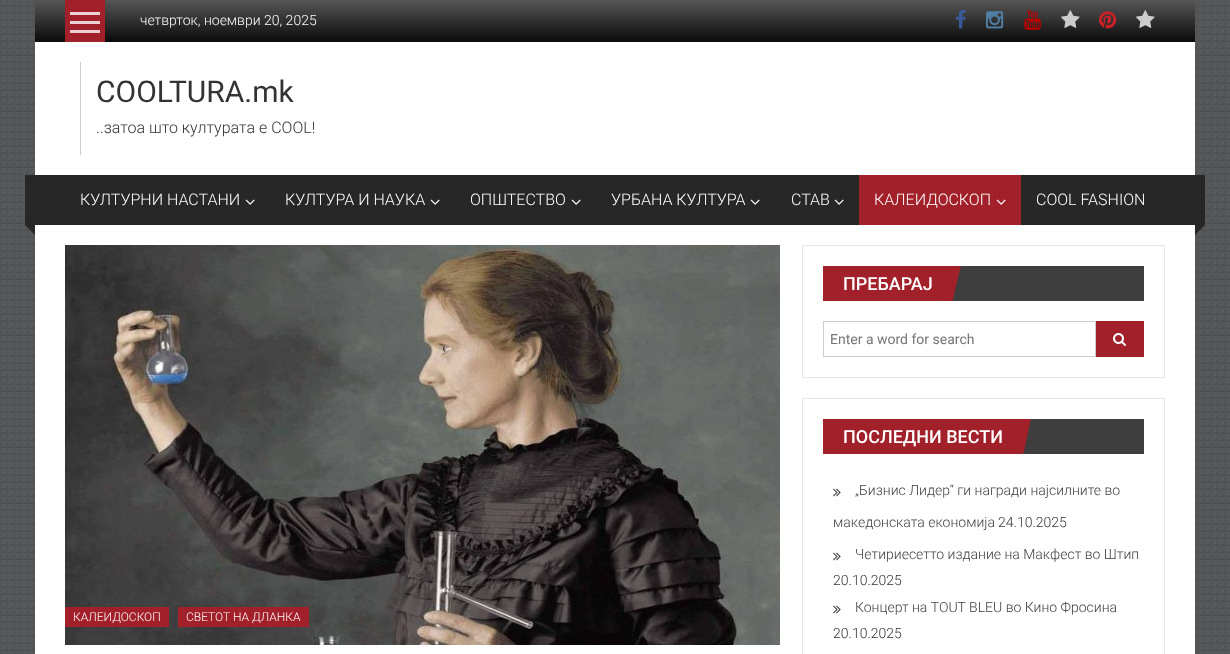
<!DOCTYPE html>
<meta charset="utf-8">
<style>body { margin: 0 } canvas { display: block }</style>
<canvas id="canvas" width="1230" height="654"></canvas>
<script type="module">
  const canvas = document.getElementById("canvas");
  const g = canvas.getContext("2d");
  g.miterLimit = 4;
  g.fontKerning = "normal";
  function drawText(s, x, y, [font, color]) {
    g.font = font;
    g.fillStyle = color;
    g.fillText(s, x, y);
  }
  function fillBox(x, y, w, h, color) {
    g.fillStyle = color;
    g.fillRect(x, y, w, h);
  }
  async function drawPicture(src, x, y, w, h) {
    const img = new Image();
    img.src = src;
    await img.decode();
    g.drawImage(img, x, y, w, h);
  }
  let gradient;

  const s1 = ["300 14px Roboto", "#FFFFFF"];
  const s2 = ["30px Roboto", "#333333"];
  const s3 = ["300 16px Roboto", "#333333"];
  const s4 = ["300 16px Roboto", "#FFFFFF"];
  const s5 = ["300 12px Roboto", "#FFFFFF"];
  const s6 = ["500 18px Roboto", "#FFFFFF"];
  const s7 = ["14px Roboto", "#757575"];
  const s8 = ["300 14px Roboto", "#3D3D3D"];
  const s9 = ["300 14px Roboto", "#333333"];

  fillBox(0, 0, 1230, 654, "#FFFFFF");
  await drawPicture("pic1.png", 0, 0, 1230, 654);
  fillBox(35, 42, 1160, 612, "#FFFFFF");
  gradient = g.createLinearGradient(615, 0, 615, 42);
  gradient.addColorStop(0, "#565656");
  gradient.addColorStop(1, "#0A0A0A");
  g.fillStyle = gradient;
  g.fillRect(35, 0, 1160, 42);
  fillBox(65, 0, 40, 42, "#A22029");
  fillBox(70, 12, 30, 3, "#ECD2D4");
  fillBox(70, 21, 30, 3, "#ECD2D4");
  fillBox(70, 30, 30, 3, "#ECD2D4");
  drawText("четврток, ноември 20, 2025", 140, 25, s1);
  await drawPicture("pic2.png", 956, 9, 10, 20);
  await drawPicture("pic3.png", 986, 11, 18, 18);
  await drawPicture("pic4.png", 1024, 9, 17, 21);
  await drawPicture("pic5.png", 1061, 10, 19, 18);
  await drawPicture("pic6.png", 1099, 11, 18, 18);
  await drawPicture("pic5.png", 1136, 10, 19, 18);
  fillBox(80, 62, 1, 93, "#CCCCCC");
  drawText("COOLTURA.mk", 96, 102, s2);
  drawText("..затоа што културата е COOL!", 96, 133, s3);
  fillBox(25, 175, 1170, 50, "#272727");
  drawText("КУЛТУРНИ НАСТАНИ", 80, 205, s4);
  await drawPicture("pic7.png", 245, 199, 10, 6);
  drawText("КУЛТУРА И НАУКА", 285, 205, s4);
  await drawPicture("pic7.png", 430, 199, 10, 6);
  drawText("ОПШТЕСТВО", 470, 205, s4);
  await drawPicture("pic7.png", 571, 199, 10, 6);
  drawText("УРБАНА КУЛТУРА", 611, 205, s4);
  await drawPicture("pic7.png", 750, 199, 10, 6);
  drawText("СТАВ", 791, 205, s4);
  await drawPicture("pic7.png", 834, 199, 10, 6);
  fillBox(859, 175, 162, 50, "#A22029");
  drawText("КАЛЕИДОСКОП", 874, 205, s4);
  await drawPicture("pic8.png", 996, 199, 10, 6);
  drawText("COOL FASHION", 1036, 205, s4);
  g.fillStyle = "#272727";
  g.beginPath();
  g.moveTo(35, 215);
  g.lineTo(35, 235);
  g.lineTo(25, 225);
  g.closePath();
  g.fill();
  g.beginPath();
  g.moveTo(1195, 235);
  g.lineTo(1195, 215);
  g.lineTo(1205, 225);
  g.closePath();
  g.fill();
  fillBox(1195, 175, 10, 50, "#272727");
  await drawPicture("pic9.png", 65, 245, 715, 400);
  fillBox(65, 607, 104, 20, "#A22029");
  drawText("КАЛЕИДОСКОП", 73, 621, s5);
  fillBox(178, 607, 131, 20, "#A22029");
  drawText("СВЕТОТ НА ДЛАНКА", 186, 621, s5);
  g.strokeStyle = "#E6E6E6";
  g.strokeRect(802.5, 245.5, 362, 132);
  fillBox(953, 266, 191, 35, "#3E3E3E");
  fillBox(823, 266, 130, 35, "#A22029");
  g.save();
  g.beginPath();
  g.rect(823, 266, 321, 35);
  g.clip();
  g.beginPath();
  g.moveTo(961, 265);
  g.lineTo(953, 299);
  g.lineTo(919, 292);
  g.lineTo(927, 258);
  g.closePath();
  g.fill();
  g.restore();
  drawText("ПРЕБАРАЈ", 843, 290, s6);
  g.strokeStyle = "#CCCCCC";
  g.strokeRect(823.5, 321.5, 272, 35);
  drawText("Enter a word for search", 830, 344, s7);
  fillBox(1096, 321, 48, 36, "#A22029");
  await drawPicture("pic10.png", 1113, 333, 13, 13);
  g.strokeStyle = "#E6E6E6";
  g.strokeRect(802.5, 398.5, 362, 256);
  fillBox(1023, 419, 121, 35, "#3E3E3E");
  fillBox(823, 419, 200, 35, "#A22029");
  g.save();
  g.beginPath();
  g.rect(823, 419, 321, 35);
  g.clip();
  g.beginPath();
  g.moveTo(1031, 418);
  g.lineTo(1024, 452);
  g.lineTo(989, 445);
  g.lineTo(997, 411);
  g.closePath();
  g.fill();
  g.restore();
  drawText("ПОСЛЕДНИ ВЕСТИ", 843, 443, s6);
  await drawPicture("pic11.png", 833, 488, 8, 9);
  drawText("„Бизнис Лидер“ ги награди најсилните во", 855, 495, s8);
  drawText("македонската економија", 833, 527, s8);
  drawText("24.10.2025", 998, 527, s9);
  await drawPicture("pic11.png", 833, 552, 8, 9);
  drawText("Четириесетто издание на Макфест во Штип", 855, 559, s8);
  drawText("20.10.2025", 833, 585, s9);
  await drawPicture("pic11.png", 833, 605, 8, 9);
  drawText("Концерт на TOUT BLEU во Кино Фросина", 855, 612, s8);
  drawText("20.10.2025", 833, 638, s9);
</script>
